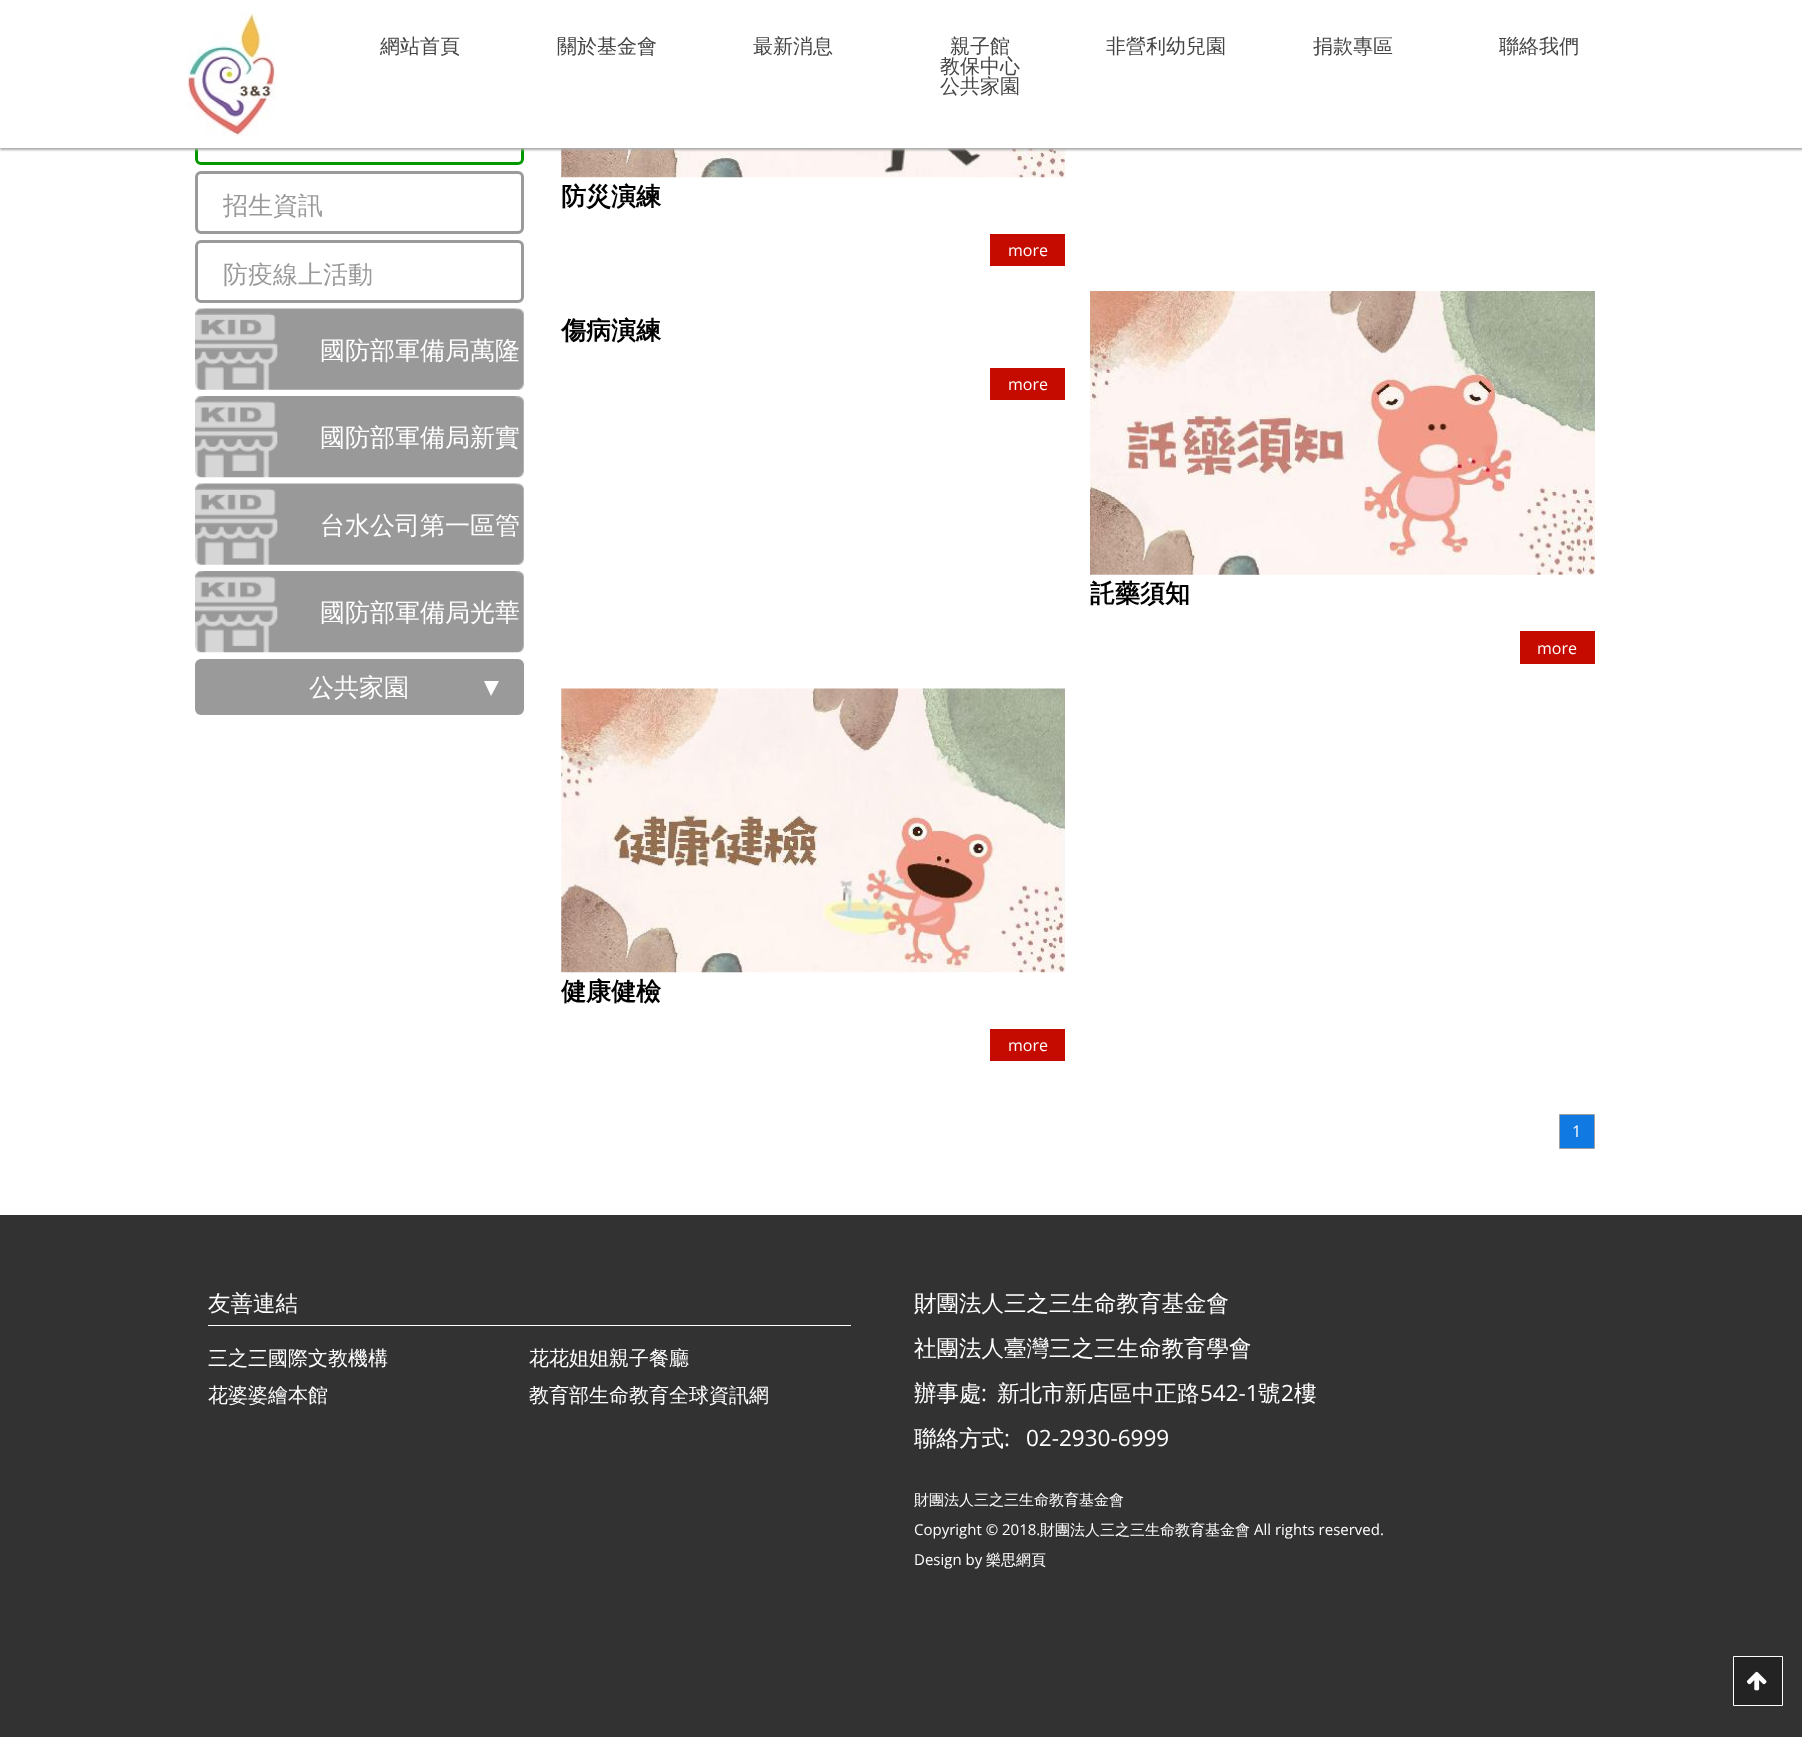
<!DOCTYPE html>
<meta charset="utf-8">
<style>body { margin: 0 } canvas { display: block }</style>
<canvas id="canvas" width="1802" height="1737"></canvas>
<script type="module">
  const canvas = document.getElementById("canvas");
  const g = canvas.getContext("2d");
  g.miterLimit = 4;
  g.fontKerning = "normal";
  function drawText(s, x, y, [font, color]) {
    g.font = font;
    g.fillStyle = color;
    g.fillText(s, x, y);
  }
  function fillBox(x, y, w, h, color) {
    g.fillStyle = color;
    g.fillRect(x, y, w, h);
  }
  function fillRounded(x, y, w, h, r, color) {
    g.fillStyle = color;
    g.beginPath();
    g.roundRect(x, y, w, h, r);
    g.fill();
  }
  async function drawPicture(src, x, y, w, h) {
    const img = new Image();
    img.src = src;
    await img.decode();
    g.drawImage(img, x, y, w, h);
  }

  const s1 = ["500 20px WenQuanYi Zen Hei", "#444444"];
  const s2 = ["500 25px WenQuanYi Zen Hei", "#9A9A9A"];
  const s3 = ["500 25px WenQuanYi Zen Hei", "#FFFFFF"];
  const s4 = ["bold 25px WenQuanYi Zen Hei", "#000000"];
  const s5 = ["16px Open Sans", "#FFFFFF"];
  const s6 = ["500 22.5px WenQuanYi Zen Hei", "#FFFFFF"];
  const s7 = ["500 20px WenQuanYi Zen Hei", "#FFFFFF"];
  const s8 = ["22.5px Open Sans", "#FFFFFF"];
  const s9 = ["500 15px WenQuanYi Zen Hei", "#FFFFFF"];
  const s10 = ["15px Open Sans", "#FFFFFF"];

  fillBox(0, 0, 1802, 1737, "#FFFFFF");
  g.beginPath();
  g.roundRect(196.5, 104.5, 326, 59, 4.5);
  g.strokeStyle = "#009900";
  g.lineWidth = 3;
  g.stroke();
  await drawPicture("pic4.png", 561, 148, 504, 30);
  g.fillStyle = "#AAAAAA";
  g.filter = "blur(1px)";
  g.beginPath();
  g.rect(0, 3, 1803, 147);
  g.fill();
  g.filter = "none";
  fillBox(0, 1, 1802, 147, "#FFFFFF");
  await drawPicture("pic1.png", 187, 12, 89, 124);
  drawText("網站首頁", 380, 53, s1);
  drawText("關於基金會", 557, 53, s1);
  drawText("最新消息", 753, 53, s1);
  drawText("親子館", 950, 53, s1);
  drawText("教保中心", 940, 73, s1);
  drawText("公共家園", 940, 93, s1);
  drawText("非營利幼兒園", 1106, 53, s1);
  drawText("捐款專區", 1313, 53, s1);
  drawText("聯絡我們", 1499, 53, s1);
  g.beginPath();
  g.roundRect(196.5, 172.5, 326, 60, 4.5);
  g.strokeStyle = "#9A9A9A";
  g.stroke();
  drawText("招生資訊", 223, 214, s2);
  g.beginPath();
  g.roundRect(196.5, 241.5, 326, 60, 4.5);
  g.stroke();
  drawText("防疫線上活動", 223, 283, s2);
  await drawPicture("pic2.png", 195, 308, 329, 82);
  drawText("國防部軍備局萬隆", 320, 359, s3);
  await drawPicture("pic3.png", 195, 396, 329, 82);
  drawText("國防部軍備局新實", 320, 446, s3);
  await drawPicture("pic2.png", 195, 483, 329, 82);
  drawText("台水公司第一區管", 320, 534, s3);
  await drawPicture("pic3.png", 195, 571, 329, 82);
  drawText("國防部軍備局光華", 320, 621, s3);
  fillRounded(195, 659, 329, 56, 6, "#9A9A9A");
  drawText("公共家園", 309, 696, s3);
  g.beginPath();
  g.moveTo(484, 681);
  g.lineTo(499, 681);
  g.lineTo(491, 696);
  g.closePath();
  g.fill();
  drawText("防災演練", 561, 205, s4);
  fillBox(990, 234, 75, 32, "#C50B00");
  drawText("more", 1008, 256, s5);
  drawText("傷病演練", 561, 339, s4);
  fillBox(990, 368, 75, 32, "#C50B00");
  drawText("more", 1008, 390, s5);
  await drawPicture("pic5.png", 1090, 291, 505, 284);
  drawText("託藥須知", 1090, 602, s4);
  fillBox(1520, 631, 75, 33, "#C50B00");
  drawText("more", 1537, 654, s5);
  await drawPicture("pic6.png", 561, 688, 504, 285);
  drawText("健康健檢", 561, 1000, s4);
  fillBox(990, 1029, 75, 32, "#C50B00");
  drawText("more", 1008, 1051, s5);
  g.fillStyle = "#1079E2";
  g.beginPath();
  g.rect(1559.5, 1114.5, 35, 34);
  g.fill();
  g.strokeStyle = "#A0A0A0";
  g.lineWidth = 1;
  g.stroke();
  drawText("1", 1572, 1137, s5);
  fillBox(0, 1215, 1802, 522, "#323232");
  fillBox(208, 1325, 643, 1, "#FFFFFF");
  drawText("友善連結", 208, 1311, s6);
  drawText("三之三國際文教機構", 208, 1365, s7);
  drawText("花花姐姐親子餐廳", 529, 1365, s7);
  drawText("花婆婆繪本館", 208, 1402, s7);
  drawText("教育部生命教育全球資訊網", 529, 1402, s7);
  drawText("財團法人三之三生命教育基金會", 914, 1311, s6);
  drawText("社團法人臺灣三之三生命教育學會", 914, 1356, s6);
  drawText("辦事處", 914, 1401, s6);
  drawText(":", 981, 1401, s8);
  drawText("新北市新店區中正路", 997, 1401, s6);
  drawText("542-1", 1200, 1401, s8);
  drawText("號", 1258, 1401, s6);
  drawText("2", 1281, 1401, s8);
  drawText("樓", 1294, 1401, s6);
  drawText("聯絡方式", 914, 1446, s6);
  drawText(":", 1004, 1446, s8);
  drawText("02-2930-6999", 1026, 1446, s8);
  drawText("財團法人三之三生命教育基金會", 914, 1505, s9);
  drawText("Copyright © 2018.", 914, 1535, s10);
  drawText("財團法人三之三生命教育基金會", 1040, 1535, s9);
  drawText("All rights reserved.", 1254, 1535, s10);
  drawText("Design by", 914, 1565, s10);
  drawText("樂思網頁", 986, 1565, s9);
  g.fillStyle = "#232323";
  g.beginPath();
  g.rect(1733.5, 1656.5, 49, 49);
  g.fill();
  g.strokeStyle = "#FFFFFF";
  g.stroke();
  await drawPicture("pic7.png", 1746, 1671, 21, 20);
</script>
